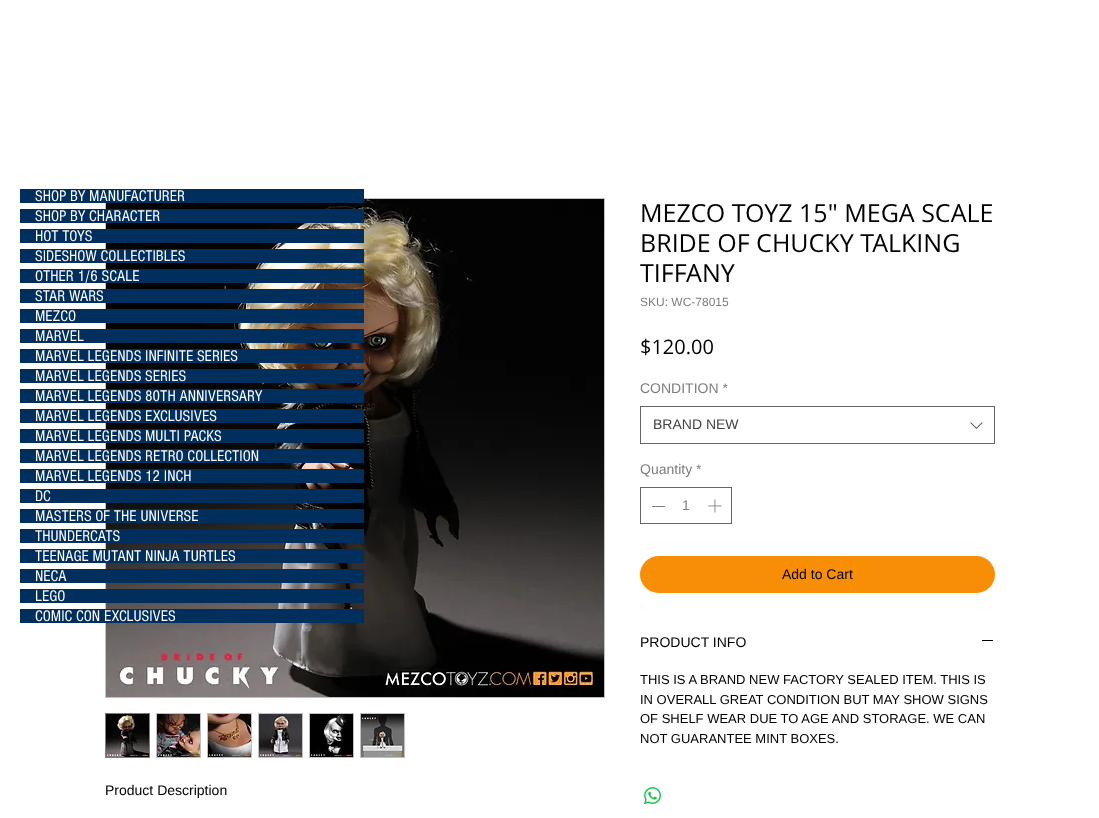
<!DOCTYPE html>
<meta charset="utf-8">
<style>body { margin: 0 } canvas { display: block }</style>
<canvas id="canvas" width="1099" height="818"></canvas>
<script type="module">
  const canvas = document.getElementById("canvas");
  const g = canvas.getContext("2d");
  g.miterLimit = 4;
  g.fontKerning = "normal";
  function drawText(s, x, y, [font, color]) {
    g.font = font;
    g.fillStyle = color;
    g.fillText(s, x, y);
  }
  function fillBox(x, y, w, h, color) {
    g.fillStyle = color;
    g.fillRect(x, y, w, h);
  }
  function fillRounded(x, y, w, h, r, color) {
    g.fillStyle = color;
    g.beginPath();
    g.roundRect(x, y, w, h, r);
    g.fill();
  }
  async function drawPicture(src, x, y, w, h) {
    const img = new Image();
    img.src = src;
    await img.decode();
    g.drawImage(img, x, y, w, h);
  }

  const s1 = ["16px 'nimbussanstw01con'", "#FFFFFF"];
  const s2 = ["25px Open Sans", "#000000"];
  const s3 = ["12px Liberation Sans", "#7D7D7D"];
  const s4 = ["20px Open Sans", "#000000"];
  const s5 = ["14px Liberation Sans", "#7D7D7D"];
  const s6 = ["14px Liberation Sans", "#444444"];
  const s7 = ["14px Liberation Sans", "#000000"];
  const s8 = ["13px Liberation Sans", "#000000"];

  fillBox(0, 0, 1099, 818, "#FFFFFF");
  g.strokeStyle = "#C0C0C0";
  g.strokeRect(105.5, 198.5, 499, 499);
  await drawPicture("pic4.png", 106, 199, 498, 498);
  fillBox(20, 189, 344, 14, "#002E5D");
  drawText("SHOP BY MANUFACTURER", 35, 201, s1);
  fillBox(20, 209, 344, 14, "#002E5D");
  drawText("SHOP BY CHARACTER", 35, 221, s1);
  fillBox(20, 229, 344, 14, "#002E5D");
  drawText("HOT TOYS", 35, 241, s1);
  fillBox(20, 249, 344, 14, "#002E5D");
  drawText("SIDESHOW COLLECTIBLES", 35, 261, s1);
  fillBox(20, 269, 344, 14, "#002E5D");
  drawText("OTHER 1/6 SCALE", 35, 281, s1);
  fillBox(20, 289, 344, 14, "#002E5D");
  drawText("STAR WARS", 35, 301, s1);
  fillBox(20, 309, 344, 14, "#002E5D");
  drawText("MEZCO", 35, 321, s1);
  fillBox(20, 329, 344, 14, "#002E5D");
  drawText("MARVEL", 35, 341, s1);
  fillBox(20, 349, 344, 14, "#002E5D");
  drawText("MARVEL LEGENDS INFINITE SERIES", 35, 361, s1);
  fillBox(20, 369, 344, 14, "#002E5D");
  drawText("MARVEL LEGENDS SERIES", 35, 381, s1);
  fillBox(20, 389, 344, 14, "#002E5D");
  drawText("MARVEL LEGENDS 80TH ANNIVERSARY", 35, 401, s1);
  fillBox(20, 409, 344, 14, "#002E5D");
  drawText("MARVEL LEGENDS EXCLUSIVES", 35, 421, s1);
  fillBox(20, 429, 344, 14, "#002E5D");
  drawText("MARVEL LEGENDS MULTI PACKS", 35, 441, s1);
  fillBox(20, 449, 344, 14, "#002E5D");
  drawText("MARVEL LEGENDS RETRO COLLECTION", 35, 461, s1);
  fillBox(20, 469, 344, 14, "#002E5D");
  drawText("MARVEL LEGENDS 12 INCH", 35, 481, s1);
  fillBox(20, 489, 344, 14, "#002E5D");
  drawText("DC", 35, 501, s1);
  fillBox(20, 509, 344, 14, "#002E5D");
  drawText("MASTERS OF THE UNIVERSE", 35, 521, s1);
  fillBox(20, 529, 344, 14, "#002E5D");
  drawText("THUNDERCATS", 35, 541, s1);
  fillBox(20, 549, 344, 14, "#002E5D");
  drawText("TEENAGE MUTANT NINJA TURTLES", 35, 561, s1);
  fillBox(20, 569, 344, 14, "#002E5D");
  drawText("NECA", 35, 581, s1);
  fillBox(20, 589, 344, 14, "#002E5D");
  drawText("LEGO", 35, 601, s1);
  fillBox(20, 609, 344, 14, "#002E5D");
  drawText("COMIC CON EXCLUSIVES", 35, 621, s1);
  drawText("MEZCO TOYZ 15\" MEGA SCALE", 640, 222, s2);
  drawText("BRIDE OF CHUCKY TALKING", 640, 252, s2);
  drawText("TIFFANY", 640, 282, s2);
  drawText("SKU: WC-78015", 640, 306, s3);
  drawText("$120.00", 640, 354, s4);
  drawText("CONDITION *", 640, 393, s5);
  g.strokeStyle = "#666666";
  g.strokeRect(640.5, 406.5, 354, 37);
  drawText("BRAND NEW", 653, 429, s6);
  await drawPicture("pic1.png", 970, 422, 13, 7);
  drawText("Quantity *", 640, 474, s5);
  g.strokeRect(640.5, 487.5, 91, 36);
  fillBox(652, 506, 13, 1, "#7D7D7D");
  drawText("1", 682, 510, s5);
  await drawPicture("pic2.png", 708, 499, 14, 14);
  fillRounded(640, 556, 355, 37, 18.5, "#F78E05");
  drawText("Add to Cart", 782, 579, s7);
  drawText("PRODUCT INFO", 640, 647, s7);
  fillBox(982, 640, 11, 1, "#000000");
  drawText("THIS IS A BRAND NEW FACTORY SEALED ITEM. THIS IS", 640, 684, s8);
  drawText("IN OVERALL GREAT CONDITION BUT MAY SHOW SIGNS", 640, 704, s8);
  drawText("OF SHELF WEAR DUE TO AGE AND STORAGE. WE CAN", 640, 723, s8);
  drawText("NOT GUARANTEE MINT BOXES.", 640, 743, s8);
  await drawPicture("pic3.png", 644, 787, 17, 17);
  g.strokeStyle = "#7D7D7D";
  g.strokeRect(105.5, 713.5, 44, 44);
  await drawPicture("pic5.png", 106, 714, 43, 43);
  fillBox(156, 713, 45, 45, "#C0C0C0");
  await drawPicture("pic6.png", 157, 714, 43, 43);
  fillBox(207, 713, 45, 45, "#C0C0C0");
  await drawPicture("pic7.png", 208, 714, 43, 43);
  fillBox(258, 713, 45, 45, "#C0C0C0");
  await drawPicture("pic8.png", 259, 714, 43, 43);
  fillBox(309, 713, 45, 45, "#C0C0C0");
  await drawPicture("pic9.png", 310, 714, 43, 43);
  fillBox(360, 713, 45, 45, "#C0C0C0");
  await drawPicture("pic10.png", 361, 714, 43, 43);
  drawText("Product Description", 105, 795, s7);
</script>
